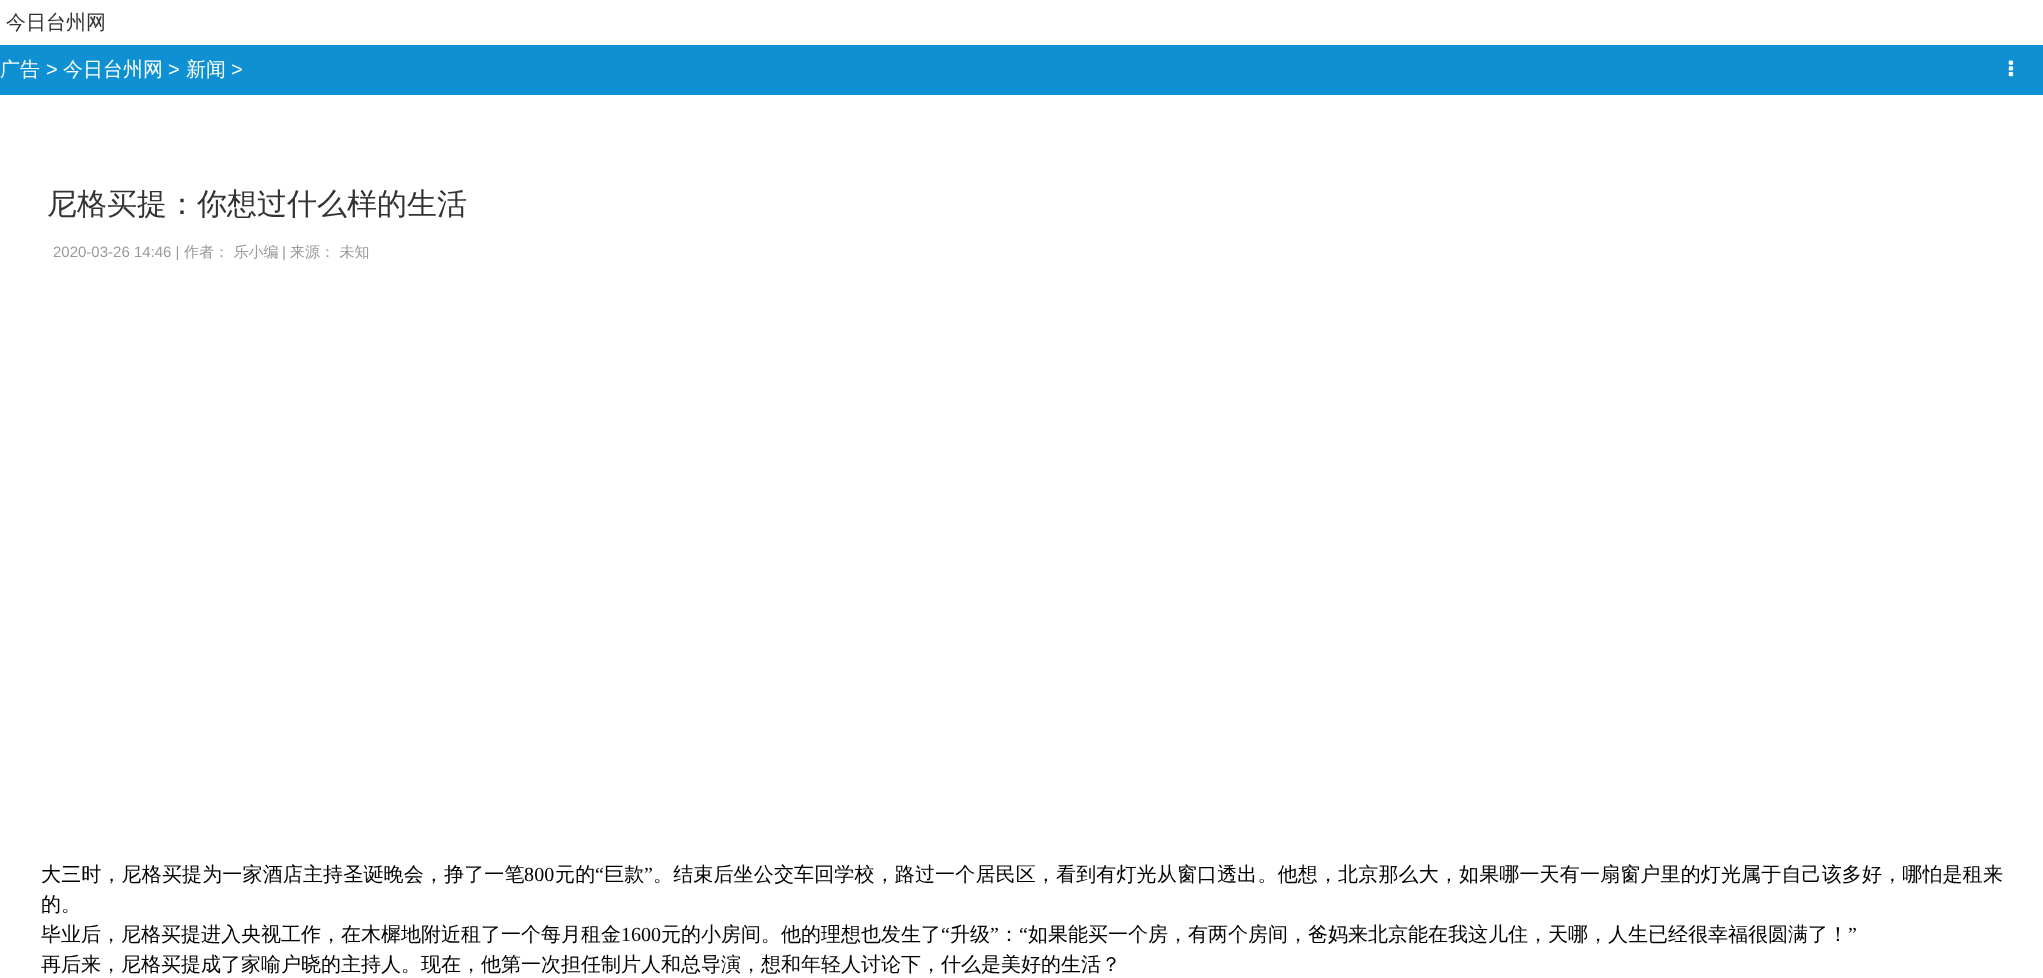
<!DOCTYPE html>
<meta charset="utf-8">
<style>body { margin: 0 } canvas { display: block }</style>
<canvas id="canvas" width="2043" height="978"></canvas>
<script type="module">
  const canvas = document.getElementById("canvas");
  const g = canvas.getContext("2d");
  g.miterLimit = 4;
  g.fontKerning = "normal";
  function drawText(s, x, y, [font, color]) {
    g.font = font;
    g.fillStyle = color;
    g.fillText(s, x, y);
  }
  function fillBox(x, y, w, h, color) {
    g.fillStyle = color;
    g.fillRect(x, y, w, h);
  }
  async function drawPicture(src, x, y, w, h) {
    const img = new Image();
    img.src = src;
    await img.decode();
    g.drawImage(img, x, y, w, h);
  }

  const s1 = ["500 20px WenQuanYi Zen Hei", "#333333"];
  const s2 = ["500 20px WenQuanYi Zen Hei", "#FFFFFF"];
  const s3 = ["20px Liberation Sans", "#FFFFFF"];
  const s4 = ["500 30px WenQuanYi Zen Hei", "#333333"];
  const s5 = ["15px Liberation Sans", "#999999"];
  const s6 = ["500 15px WenQuanYi Zen Hei", "#999999"];
  const s7 = ["500 20px WenQuanYi Zen Hei", "#000000"];
  const s8 = ["20px Liberation Serif", "#000000"];

  fillBox(0, 0, 2043, 978, "#FFFFFF");
  drawText("今日台州网", 6, 29, s1);
  fillBox(0, 45, 2043, 50, "#0E90D2");
  drawText("广告", 0, 76, s2);
  drawText(">", 46, 76, s3);
  drawText("今日台州网", 63, 76, s2);
  drawText(">", 168, 76, s3);
  drawText("新闻", 186, 76, s2);
  drawText(">", 231, 76, s3);
  await drawPicture("pic1.png", 2008, 60, 6, 17);
  drawText("尼格买提：你想过什么样的生活", 47, 214, s4);
  drawText("2020-03-26 14:46 |", 53, 257, s5);
  drawText("作者： 乐小编", 184, 257, s6);
  drawText("|", 282, 257, s5);
  drawText("来源： 未知", 290, 257, s6);
  g.letterSpacing = "0.15px";
  drawText("大三时，尼格买提为一家酒店主持圣诞晚会，挣了一笔", 41, 881, s7);
  drawText("800", 524, 881, s8);
  drawText("元的", 555, 881, s7);
  drawText("“", 595, 881, s8);
  drawText("巨款", 604, 881, s7);
  drawText("”", 644, 881, s8);
  drawText("。结束后坐公交车回学校，路过一个居民区，看到有灯光从窗口透出。他想，北京那么大，如果哪一天有一扇窗户里的灯光属于自己该多好，哪怕是租来", 653, 881, s7);
  g.letterSpacing = "0px";
  drawText("的。", 41, 911, s7);
  drawText("毕业后，尼格买提进入央视工作，在木樨地附近租了一个每月租金", 41, 941, s7);
  drawText("1600", 621, 941, s8);
  drawText("元的小房间。他的理想也发生了", 661, 941, s7);
  drawText("“", 941, 941, s8);
  drawText("升级", 950, 941, s7);
  drawText("”", 990, 941, s8);
  drawText("：", 999, 941, s7);
  drawText("“", 1019, 941, s8);
  drawText("如果能买一个房，有两个房间，爸妈来北京能在我这儿住，天哪，人生已经很幸福很圆满了！", 1028, 941, s7);
  drawText("”", 1848, 941, s8);
  drawText("再后来，尼格买提成了家喻户晓的主持人。现在，他第一次担任制片人和总导演，想和年轻人讨论下，什么是美好的生活？", 41, 971, s7);
</script>
